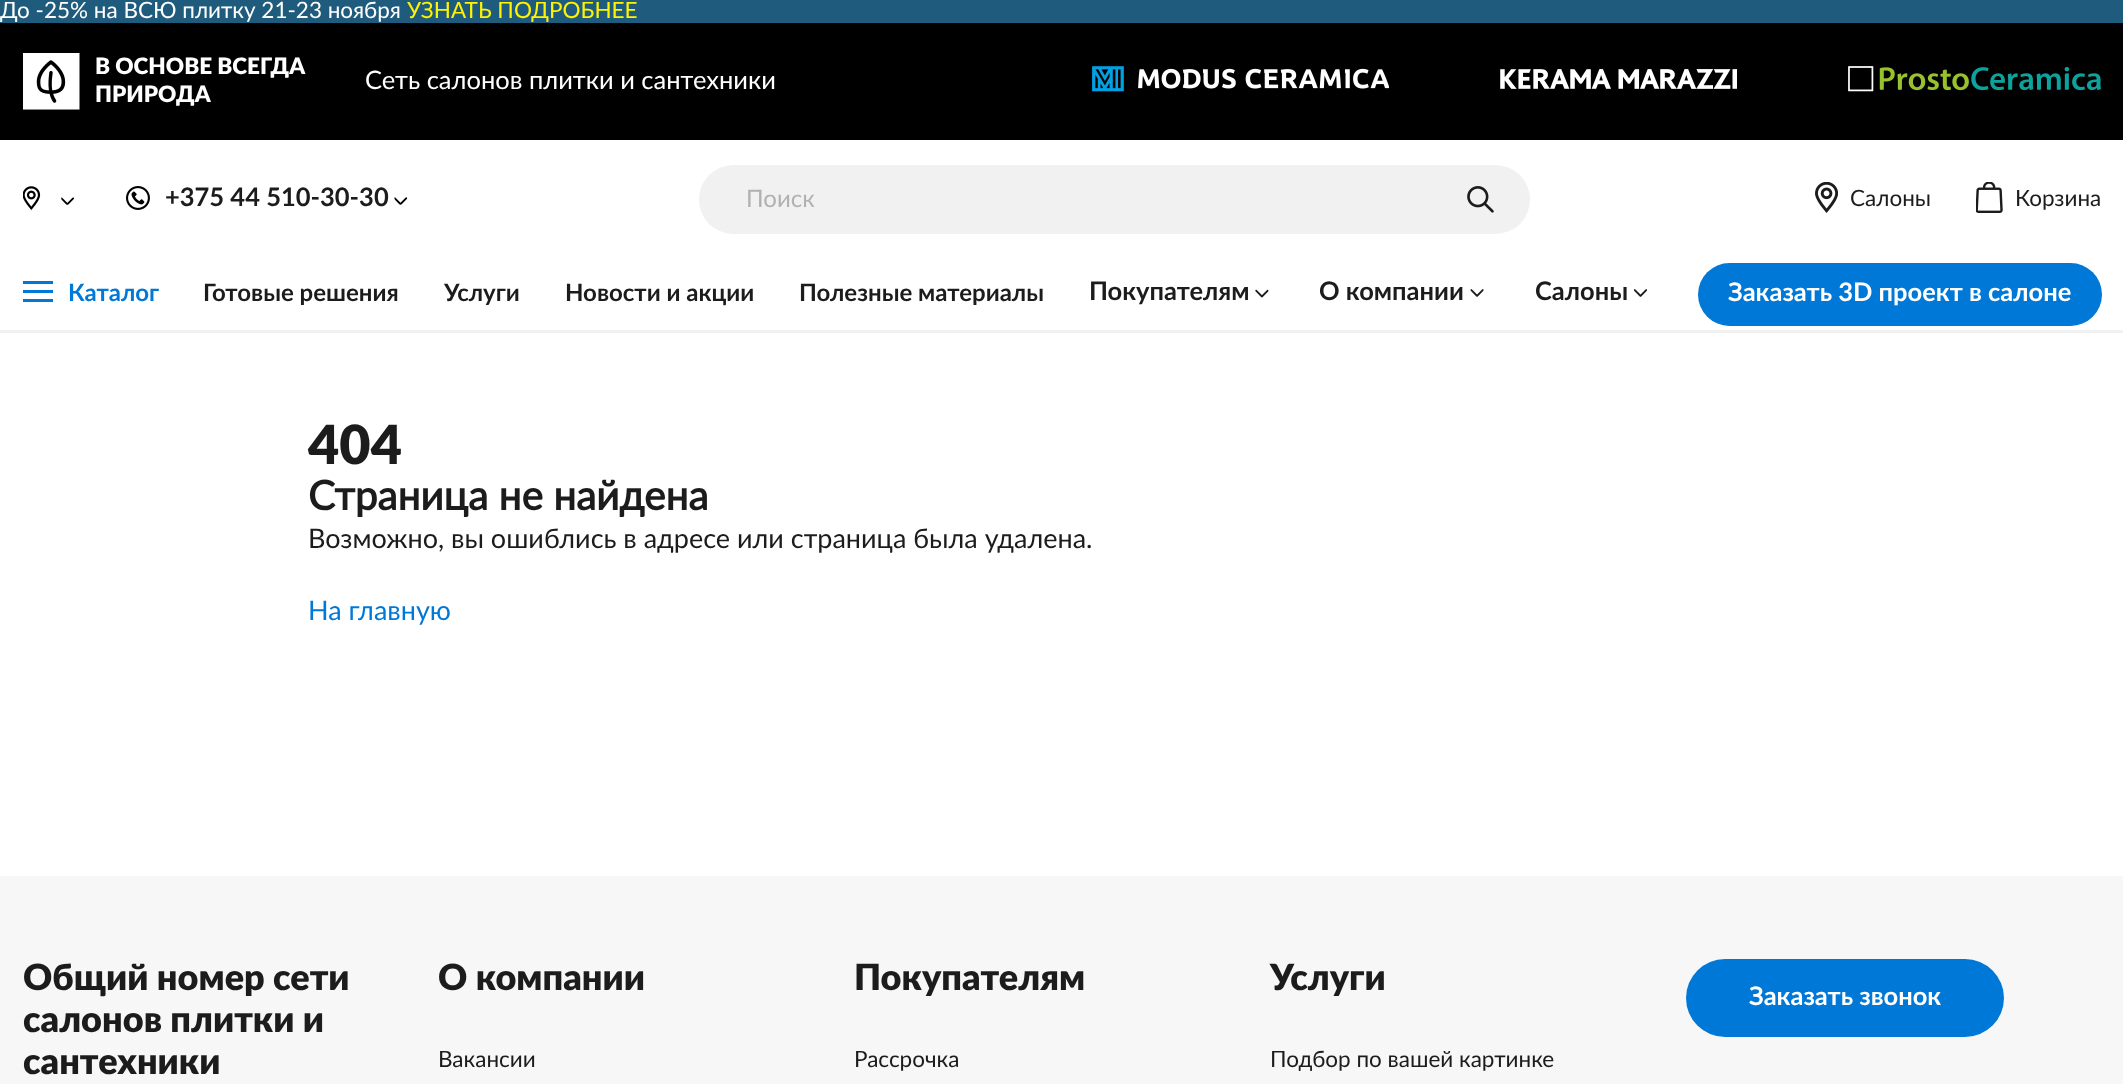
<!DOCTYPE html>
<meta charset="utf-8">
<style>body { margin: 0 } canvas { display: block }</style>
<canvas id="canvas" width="2123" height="1084"></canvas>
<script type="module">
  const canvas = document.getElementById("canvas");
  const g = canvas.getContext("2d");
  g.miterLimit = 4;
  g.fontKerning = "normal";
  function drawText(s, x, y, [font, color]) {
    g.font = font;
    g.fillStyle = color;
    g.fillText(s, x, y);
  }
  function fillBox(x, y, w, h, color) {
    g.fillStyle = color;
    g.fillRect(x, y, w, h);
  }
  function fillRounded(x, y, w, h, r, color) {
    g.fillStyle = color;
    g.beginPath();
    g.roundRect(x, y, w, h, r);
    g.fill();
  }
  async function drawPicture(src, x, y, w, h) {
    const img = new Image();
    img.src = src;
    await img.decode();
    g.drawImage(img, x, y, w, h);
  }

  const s1 = ["22.5px Lato", "#FFFFFF"];
  const s2 = ["22.5px Lato", "#FFF300"];
  const s3 = ["900 22.5px Lato", "#FFFFFF"];
  const s4 = ["25.5px Lato", "#FFFFFF"];
  const s5 = ["bold 25.5px 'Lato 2'", "#1C1C1C"];
  const s6 = ["24px Lato", "#B1B1B1"];
  const s7 = ["22.5px Lato", "#1C1C1C"];
  const s8 = ["bold 24px 'Lato 2'", "#0078D7"];
  const s9 = ["bold 24px 'Lato 2'", "#1C1C1C"];
  const s10 = ["bold 25.5px 'Lato 2'", "#FFFFFF"];
  const s11 = ["900 54px Lato", "#1C1C1C"];
  const s12 = ["bold 40.5px Lato", "#1C1C1C"];
  const s13 = ["27px Lato", "#1C1C1C"];
  const s14 = ["27px Lato", "#0078D7"];
  const s15 = ["900 36px Lato", "#1C1C1C"];

  fillBox(0, 0, 2123, 1084, "#FFFFFF");
  fillBox(0, 330, 2123, 3, "#F1F1F1");
  fillBox(0, 0, 2123, 23, "#1F5B7D");
  drawText("До -25% на ВСЮ плитку 21-23 ноября", 0, 18, s1);
  drawText("УЗНАТЬ ПОДРОБНЕЕ", 407, 18, s2);
  fillBox(0, 23, 2123, 117, "#000000");
  await drawPicture("pic1.png", 23, 53, 57, 57);
  drawText("В ОСНОВЕ ВСЕГДА", 95, 74, s3);
  drawText("ПРИРОДА", 95, 102, s3);
  drawText("Сеть салонов плитки и сантехники", 365, 89, s4);
  await drawPicture("pic2.png", 1092, 66, 297, 26);
  await drawPicture("pic3.png", 1500, 69, 237, 20);
  await drawPicture("pic4.png", 1848, 66, 253, 26);
  await drawPicture("pic5.png", 23, 186, 18, 24);
  await drawPicture("pic6.png", 61, 197, 13, 8);
  await drawPicture("pic7.png", 126, 186, 24, 24);
  drawText("+375 44 510-30-30", 165, 206, s5);
  await drawPicture("pic8.png", 394, 197, 14, 8);
  fillRounded(699, 165, 831, 69, 34.5, "#F1F1F1");
  drawText("Поиск", 746, 207, s6);
  await drawPicture("pic9.png", 1467, 186, 27, 27);
  await drawPicture("pic10.png", 1815, 182, 23, 31);
  drawText("Салоны", 1850, 206, s7);
  await drawPicture("pic11.png", 1976, 182, 27, 31);
  drawText("Корзина", 2015, 206, s7);
  fillBox(23, 281, 30, 3, "#0078D7");
  fillBox(23, 290, 30, 3, "#0078D7");
  fillBox(23, 299, 30, 3, "#0078D7");
  drawText("Каталог", 68, 301, s8);
  drawText("Готовые решения", 203, 301, s9);
  drawText("Услуги", 444, 301, s9);
  drawText("Новости и акции", 565, 301, s9);
  drawText("Полезные материалы", 799, 301, s9);
  drawText("Покупателям", 1089, 300, s5);
  await drawPicture("pic12.png", 1255, 289, 14, 9);
  drawText("О компании", 1319, 300, s5);
  await drawPicture("pic13.png", 1470, 289, 14, 8);
  drawText("Салоны", 1535, 300, s5);
  await drawPicture("pic14.png", 1633, 289, 14, 8);
  fillRounded(1698, 263, 404, 63, 31.5, "#0078D7");
  drawText("Заказать 3D проект в салоне", 1728, 301, s10);
  drawText("404", 308, 464, s11);
  drawText("Страница не найдена", 308, 510, s12);
  drawText("Возможно, вы ошиблись в адресе или страница была удалена.", 308, 548, s13);
  drawText("На главную", 308, 620, s14);
  fillBox(0, 876, 2123, 208, "#F7F7F7");
  drawText("Общий номер сети", 23, 990, s15);
  drawText("салонов плитки и", 23, 1032, s15);
  drawText("сантехники", 23, 1074, s15);
  drawText("О компании", 438, 990, s15);
  drawText("Вакансии", 438, 1067, s7);
  drawText("Покупателям", 854, 990, s15);
  drawText("Рассрочка", 854, 1067, s7);
  drawText("Услуги", 1270, 990, s15);
  drawText("Подбор по вашей картинке", 1270, 1067, s7);
  fillRounded(1686, 959, 318, 78, 39, "#0078D7");
  drawText("Заказать звонок", 1749, 1005, s10);
</script>
